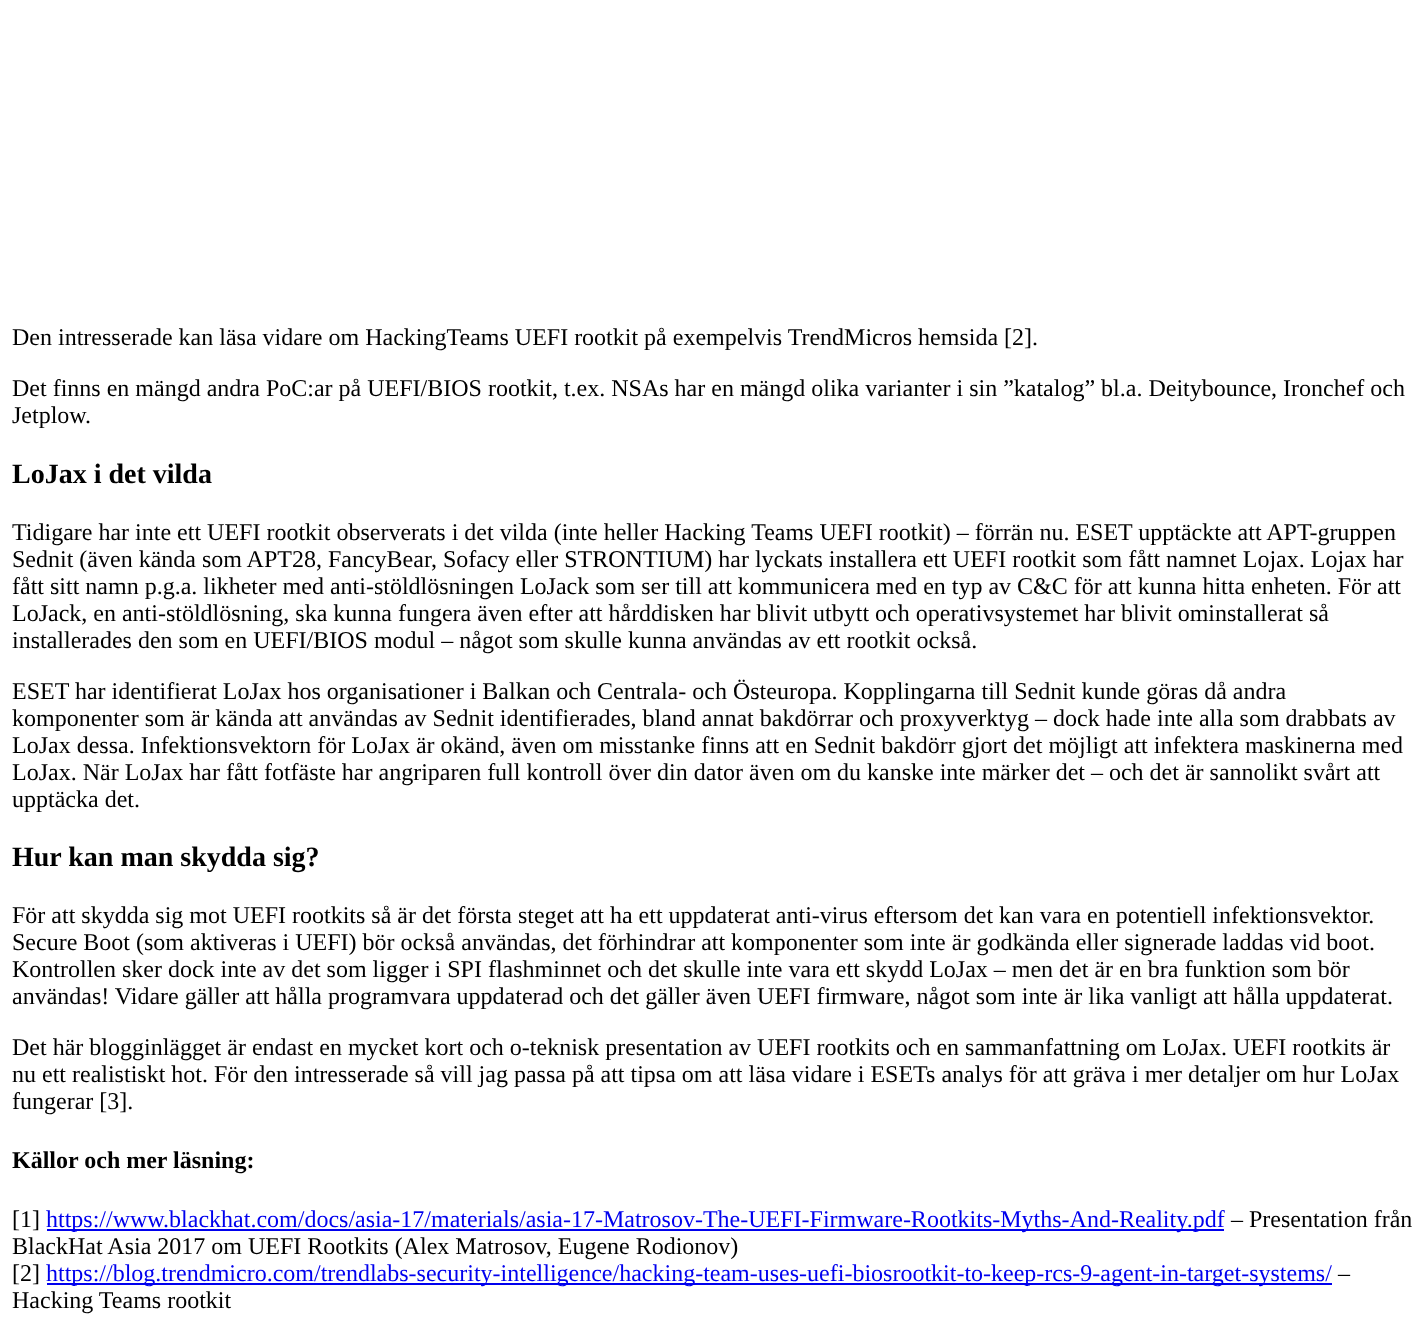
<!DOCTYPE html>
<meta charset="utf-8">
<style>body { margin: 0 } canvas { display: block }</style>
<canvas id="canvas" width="1425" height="1328"></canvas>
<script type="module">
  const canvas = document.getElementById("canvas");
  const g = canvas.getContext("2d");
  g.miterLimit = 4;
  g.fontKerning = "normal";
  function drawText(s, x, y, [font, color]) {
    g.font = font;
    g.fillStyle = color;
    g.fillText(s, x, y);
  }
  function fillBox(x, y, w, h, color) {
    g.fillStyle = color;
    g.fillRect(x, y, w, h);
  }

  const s1 = ["24px Liberation Serif", "#000000"];
  const s2 = ["bold 28px Liberation Serif", "#000000"];
  const s3 = ["bold 24px Liberation Serif", "#000000"];
  const s4 = ["24px Liberation Serif", "#0000EE"];

  fillBox(0, 0, 1425, 1328, "#FFFFFF");
  drawText("Den intresserade kan läsa vidare om HackingTeams UEFI rootkit på exempelvis TrendMicros hemsida [2].", 12, 345, s1);
  drawText("Det finns en mängd andra PoC:ar på UEFI/BIOS rootkit, t.ex. NSAs har en mängd olika varianter i sin ”katalog” bl.a. Deitybounce, Ironchef och", 12, 396, s1);
  drawText("Jetplow.", 12, 423, s1);
  drawText("LoJax i det vilda", 12, 483, s2);
  drawText("Tidigare har inte ett UEFI rootkit observerats i det vilda (inte heller Hacking Teams UEFI rootkit) – förrän nu. ESET upptäckte att APT-gruppen", 12, 540, s1);
  drawText("Sednit (även kända som APT28, FancyBear, Sofacy eller STRONTIUM) har lyckats installera ett UEFI rootkit som fått namnet Lojax. Lojax har", 12, 567, s1);
  drawText("fått sitt namn p.g.a. likheter med anti-stöldlösningen LoJack som ser till att kommunicera med en typ av C&C för att kunna hitta enheten. För att", 12, 594, s1);
  drawText("LoJack, en anti-stöldlösning, ska kunna fungera även efter att hårddisken har blivit utbytt och operativsystemet har blivit ominstallerat så", 12, 621, s1);
  drawText("installerades den som en UEFI/BIOS modul – något som skulle kunna användas av ett rootkit också.", 12, 648, s1);
  drawText("ESET har identifierat LoJax hos organisationer i Balkan och Centrala- och Östeuropa. Kopplingarna till Sednit kunde göras då andra", 12, 699, s1);
  drawText("komponenter som är kända att användas av Sednit identifierades, bland annat bakdörrar och proxyverktyg – dock hade inte alla som drabbats av", 12, 726, s1);
  drawText("LoJax dessa. Infektionsvektorn för LoJax är okänd, även om misstanke finns att en Sednit bakdörr gjort det möjligt att infektera maskinerna med", 12, 753, s1);
  drawText("LoJax. När LoJax har fått fotfäste har angriparen full kontroll över din dator även om du kanske inte märker det – och det är sannolikt svårt att", 12, 780, s1);
  drawText("upptäcka det.", 12, 807, s1);
  drawText("Hur kan man skydda sig?", 12, 866, s2);
  drawText("För att skydda sig mot UEFI rootkits så är det första steget att ha ett uppdaterat anti-virus eftersom det kan vara en potentiell infektionsvektor.", 12, 923, s1);
  drawText("Secure Boot (som aktiveras i UEFI) bör också användas, det förhindrar att komponenter som inte är godkända eller signerade laddas vid boot.", 12, 950, s1);
  drawText("Kontrollen sker dock inte av det som ligger i SPI flashminnet och det skulle inte vara ett skydd LoJax – men det är en bra funktion som bör", 12, 977, s1);
  drawText("användas! Vidare gäller att hålla programvara uppdaterad och det gäller även UEFI firmware, något som inte är lika vanligt att hålla uppdaterat.", 12, 1004, s1);
  drawText("Det här blogginlägget är endast en mycket kort och o-teknisk presentation av UEFI rootkits och en sammanfattning om LoJax. UEFI rootkits är", 12, 1055, s1);
  drawText("nu ett realistiskt hot. För den intresserade så vill jag passa på att tipsa om att läsa vidare i ESETs analys för att gräva i mer detaljer om hur LoJax", 12, 1082, s1);
  drawText("fungerar [3].", 12, 1109, s1);
  drawText("Källor och mer läsning:", 12, 1168, s3);
  drawText("[1]", 12, 1227, s1);
  fillBox(47, 1229, 1177, 2, "#0000EE");
  drawText("https://www.blackhat.com/docs/asia-17/materials/asia-17-Matrosov-The-UEFI-Firmware-Rootkits-Myths-And-Reality.pdf", 46, 1227, s4);
  drawText("– Presentation från", 1231, 1227, s1);
  drawText("BlackHat Asia 2017 om UEFI Rootkits (Alex Matrosov, Eugene Rodionov)", 12, 1254, s1);
  drawText("[2]", 12, 1281, s1);
  fillBox(47, 1283, 1285, 2, "#0000EE");
  drawText("https://blog.trendmicro.com/trendlabs-security-intelligence/hacking-team-uses-uefi-biosrootkit-to-keep-rcs-9-agent-in-target-systems/", 46, 1281, s4);
  drawText("–", 1338, 1281, s1);
  drawText("Hacking Teams rootkit", 12, 1308, s1);
</script>
